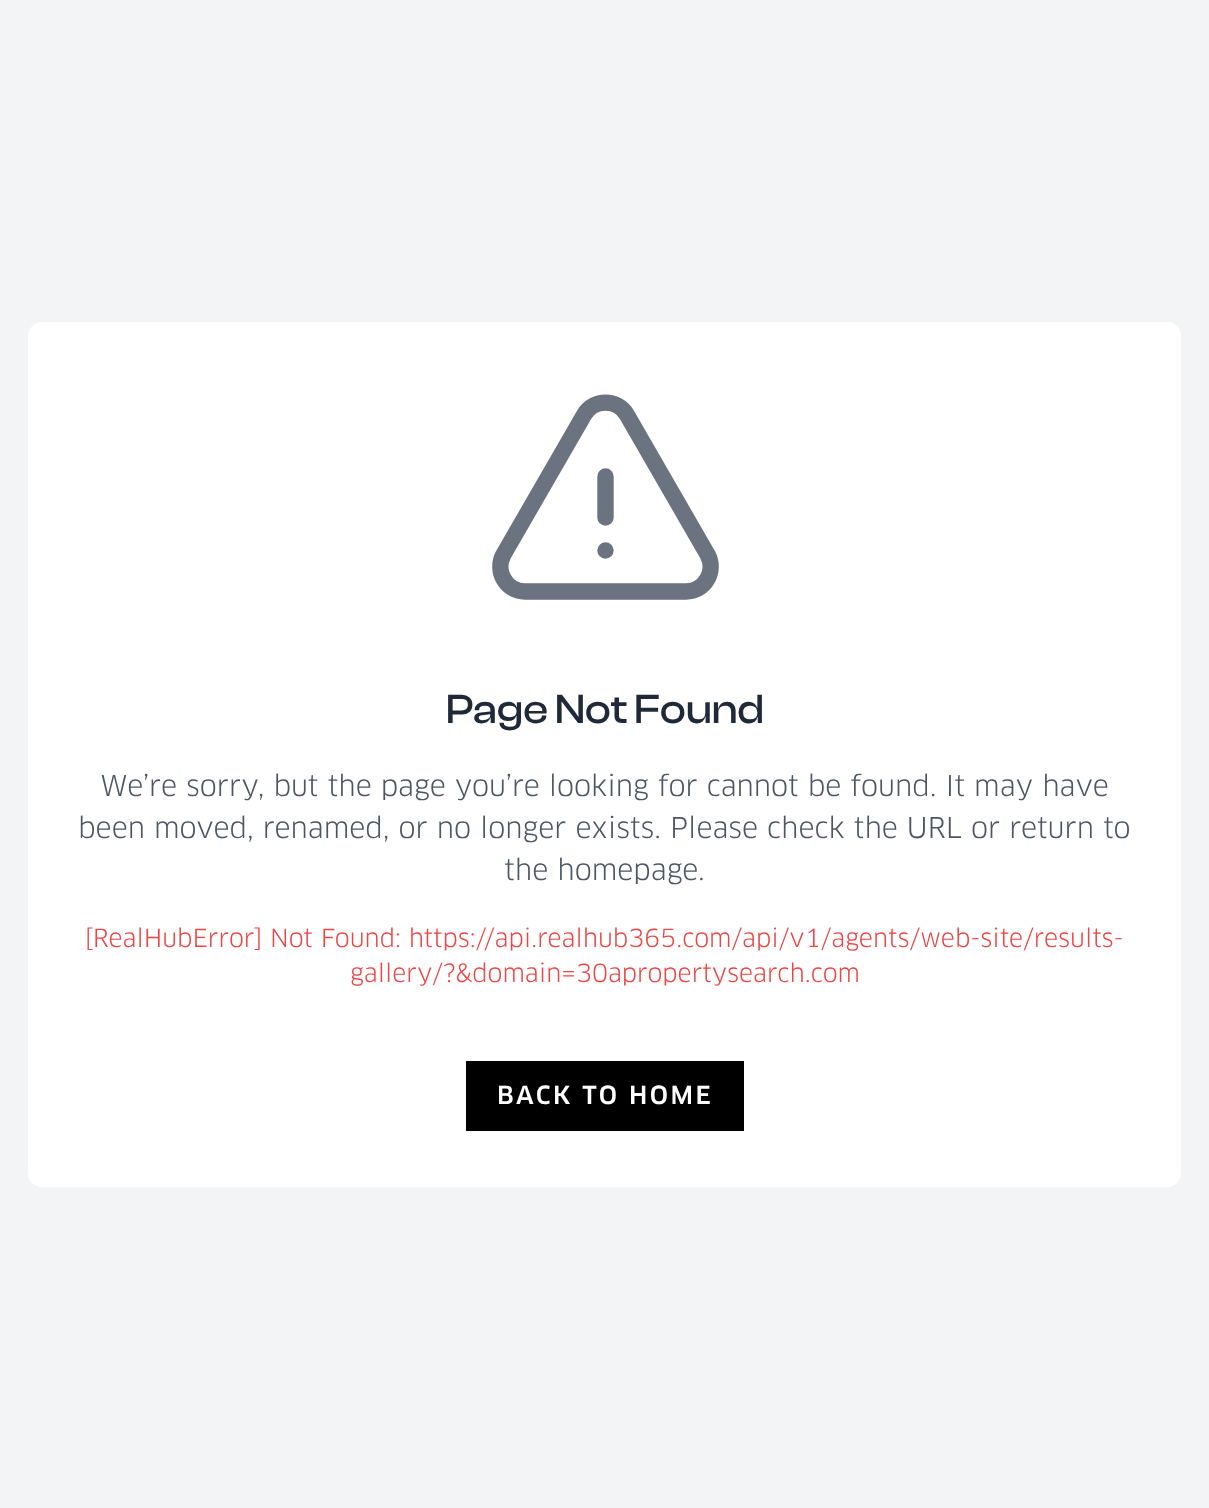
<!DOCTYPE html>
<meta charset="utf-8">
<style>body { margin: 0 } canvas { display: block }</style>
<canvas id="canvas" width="1209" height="1508"></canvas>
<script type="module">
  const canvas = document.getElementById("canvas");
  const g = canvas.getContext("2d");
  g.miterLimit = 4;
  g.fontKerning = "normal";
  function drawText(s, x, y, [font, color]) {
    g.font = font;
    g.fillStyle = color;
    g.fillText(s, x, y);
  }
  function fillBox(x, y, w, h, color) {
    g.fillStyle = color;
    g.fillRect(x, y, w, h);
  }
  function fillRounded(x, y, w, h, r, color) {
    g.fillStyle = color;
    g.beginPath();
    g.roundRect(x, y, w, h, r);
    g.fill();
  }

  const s1 = ["500 42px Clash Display", "#1F2937"];
  const s2 = ["28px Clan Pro", "#4B5563"];
  const s3 = ["24.5px Clan Pro", "#EF4444"];
  const s4 = ["500 24.5px Clan Pro", "#FFFFFF"];

  fillBox(0, 0, 1209, 1508, "#F3F4F6");
  fillRounded(28, 322, 1153, 865, 14, "#FFFFFF");
  g.beginPath();
  g.moveTo(605.5, 476.5);
  g.lineTo(605.5, 517.5);
  g.moveTo(503.5, 554.5);
  g.bezierCurveTo(494.5, 571, 506, 591.5, 525, 591.5);
  g.lineTo(686, 591.5);
  g.bezierCurveTo(705, 591.5, 716.5, 571, 707.5, 554.5);
  g.lineTo(627, 415);
  g.bezierCurveTo(617.5, 398.5, 593.5, 398.5, 584, 415);
  g.closePath();
  g.moveTo(605.5, 550.5);
  g.lineTo(605.5, 550.5);
  g.closePath();
  g.strokeStyle = "#6B7280";
  g.lineWidth = 16.4;
  g.lineCap = "round";
  g.lineJoin = "round";
  g.stroke();
  drawText("Page Not Found", 446, 723, s1);
  drawText("We’re sorry, but the page you’re looking for cannot be found. It may have", 100, 796, s2);
  drawText("been moved, renamed, or no longer exists. Please check the URL or return to", 78, 838, s2);
  drawText("the homepage.", 504, 880, s2);
  drawText("[RealHubError] Not Found: https://api.realhub365.com/api/v1/agents/web-site/results-", 85, 947, s3);
  drawText("gallery/?&domain=30apropertysearch.com", 350, 982, s3);
  fillBox(466, 1061, 278, 70, "#000000");
  g.letterSpacing = "2.5px";
  drawText("BACK TO HOME", 497, 1104, s4);
</script>
